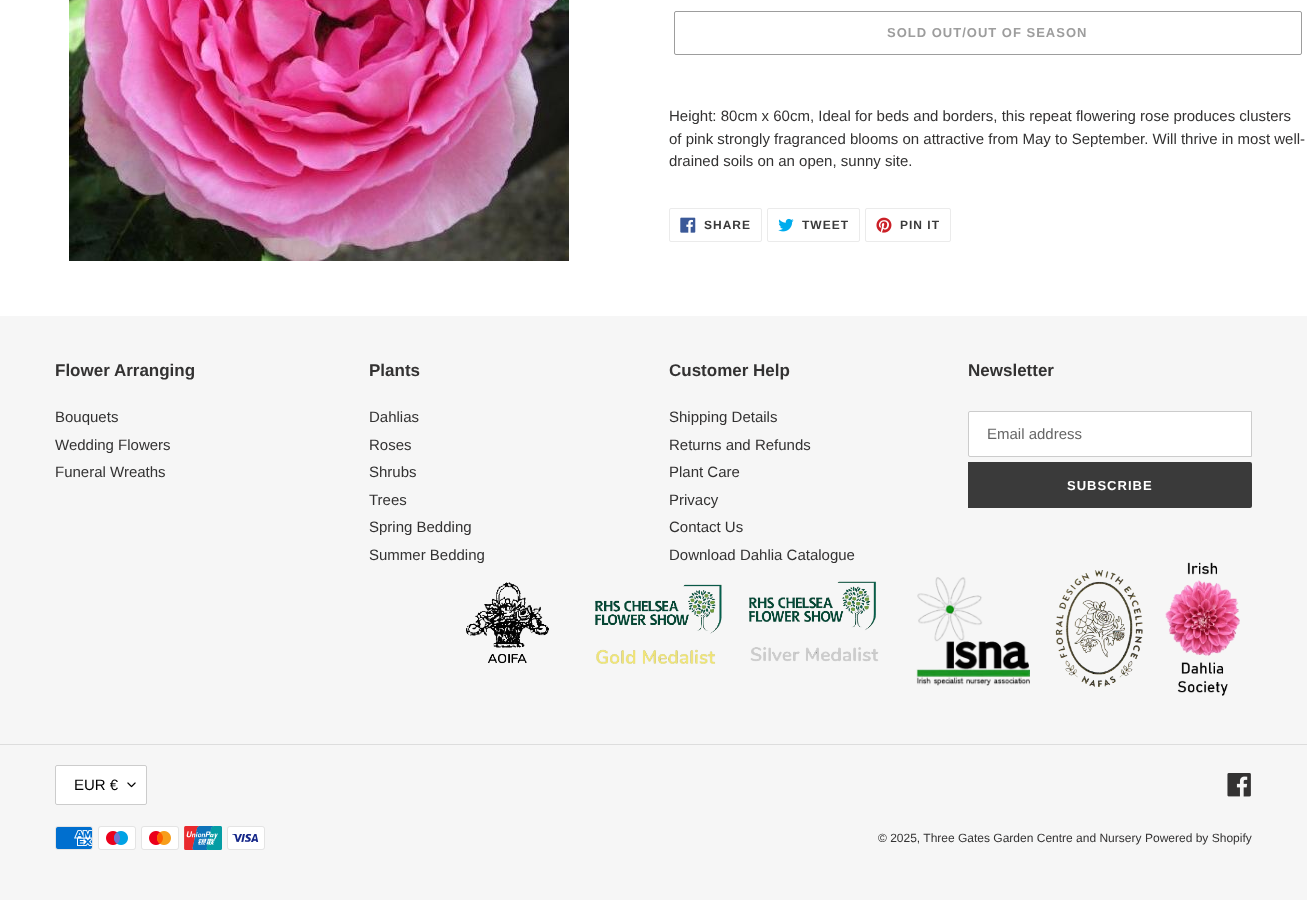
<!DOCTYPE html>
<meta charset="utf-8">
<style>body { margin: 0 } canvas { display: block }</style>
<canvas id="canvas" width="1307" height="900"></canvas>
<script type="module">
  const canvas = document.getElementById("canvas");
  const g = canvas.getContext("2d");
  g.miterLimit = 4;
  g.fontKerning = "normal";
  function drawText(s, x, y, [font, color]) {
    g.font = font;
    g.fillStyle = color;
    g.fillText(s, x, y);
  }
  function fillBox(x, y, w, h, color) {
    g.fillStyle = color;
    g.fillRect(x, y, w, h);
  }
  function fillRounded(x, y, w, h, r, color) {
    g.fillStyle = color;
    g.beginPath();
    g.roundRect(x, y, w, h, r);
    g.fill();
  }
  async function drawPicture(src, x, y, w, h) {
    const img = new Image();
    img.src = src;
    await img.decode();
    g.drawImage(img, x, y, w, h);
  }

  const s1 = ["bold 13px Liberation Sans", "#9D9D9D"];
  const s2 = ["15px Liberation Sans", "#333232"];
  const s3 = ["bold 12px Liberation Sans", "#3A3A3A"];
  const s4 = ["bold 17px Liberation Sans", "#333232"];
  const s5 = ["15px Liberation Sans", "#666666"];
  const s6 = ["bold 13px Liberation Sans", "#FFFFFF"];
  const s7 = ["15px Liberation Sans", "#000000"];
  const s8 = ["12px Liberation Sans", "#333232"];

  fillBox(0, 0, 1307, 900, "#FFFFFF");
  await drawPicture("pic1.png", 69, 0, 500, 261);
  g.beginPath();
  g.roundRect(674.5, 11.5, 627, 43, 1.5);
  g.strokeStyle = "#9D9D9D";
  g.stroke();
  g.letterSpacing = "1px";
  drawText("SOLD OUT/OUT OF SEASON", 887, 37, s1);
  g.letterSpacing = "0px";
  drawText("Height: 80cm x 60cm, Ideal for beds and borders, this repeat flowering rose produces clusters", 669, 121, s2);
  drawText("of pink strongly fragranced blooms on attractive from May to September. Will thrive in most well-", 669, 144, s2);
  drawText("drained soils on an open, sunny site.", 669, 166, s2);
  g.beginPath();
  g.roundRect(669.5, 208.5, 92, 33, 1.5);
  g.strokeStyle = "#EBEBEB";
  g.stroke();
  await drawPicture("pic2.png", 680, 217, 16, 16);
  g.letterSpacing = "1px";
  drawText("SHARE", 704, 229, s3);
  g.beginPath();
  g.roundRect(767.5, 208.5, 92, 33, 1.5);
  g.stroke();
  await drawPicture("pic3.png", 778, 218, 16, 14);
  drawText("TWEET", 802, 229, s3);
  g.beginPath();
  g.roundRect(865.5, 208.5, 85, 33, 1.5);
  g.stroke();
  await drawPicture("pic4.png", 876, 217, 16, 16);
  drawText("PIN IT", 900, 229, s3);
  fillBox(0, 316, 1307, 584, "#F6F6F6");
  g.letterSpacing = "0px";
  drawText("Flower Arranging", 55, 376, s4);
  drawText("Bouquets", 55, 422, s2);
  drawText("Wedding Flowers", 55, 450, s2);
  drawText("Funeral Wreaths", 55, 477, s2);
  drawText("Plants", 369, 376, s4);
  drawText("Dahlias", 369, 422, s2);
  drawText("Roses", 369, 450, s2);
  drawText("Shrubs", 369, 477, s2);
  drawText("Trees", 369, 505, s2);
  drawText("Spring Bedding", 369, 532, s2);
  drawText("Summer Bedding", 369, 560, s2);
  drawText("Customer Help", 669, 376, s4);
  drawText("Shipping Details", 669, 422, s2);
  drawText("Returns and Refunds", 669, 450, s2);
  drawText("Plant Care", 669, 477, s2);
  drawText("Privacy", 669, 505, s2);
  drawText("Contact Us", 669, 532, s2);
  drawText("Download Dahlia Catalogue", 669, 560, s2);
  drawText("Newsletter", 968, 376, s4);
  g.fillStyle = "#FFFFFF";
  g.beginPath();
  g.roundRect(968.5, 411.5, 283, 45, [1.5, 0, 0, 1.5]);
  g.fill();
  g.strokeStyle = "#CCCCCC";
  g.stroke();
  drawText("Email address", 987, 439, s5);
  g.fillStyle = "#3A3A3A";
  g.beginPath();
  g.roundRect(968, 462, 284, 46, [0, 2, 2, 0]);
  g.fill();
  g.letterSpacing = "1px";
  drawText("SUBSCRIBE", 1067, 490, s6);
  await drawPicture("pic5.png", 466, 582, 83, 82);
  await drawPicture("pic6.png", 595, 584, 127, 80);
  await drawPicture("pic7.png", 749, 581, 130, 81);
  await drawPicture("pic8.png", 916, 577, 114, 109);
  await drawPicture("pic9.png", 1055, 570, 88, 117);
  await drawPicture("pic10.png", 1165, 562, 75, 134);
  fillBox(0, 744, 1307, 1, "#DDDDDD");
  fillRounded(55, 765, 92, 40, 2, "#FFFFFF");
  await drawPicture("pic11.png", 127, 782, 9, 6);
  g.beginPath();
  g.roundRect(55.5, 765.5, 91, 39, 1.5);
  g.stroke();
  g.letterSpacing = "0px";
  drawText("EUR €", 74, 790, s7);
  await drawPicture("pic12.png", 1227, 773, 24, 24);
  await drawPicture("pic13.png", 55, 826, 38, 24);
  await drawPicture("pic14.png", 98, 826, 38, 24);
  await drawPicture("pic15.png", 141, 826, 38, 24);
  await drawPicture("pic16.png", 184, 826, 38, 24);
  await drawPicture("pic17.png", 227, 826, 38, 24);
  drawText("© 2025, Three Gates Garden Centre and Nursery", 878, 842, s8);
  drawText("Powered by Shopify", 1145, 842, s8);
</script>
